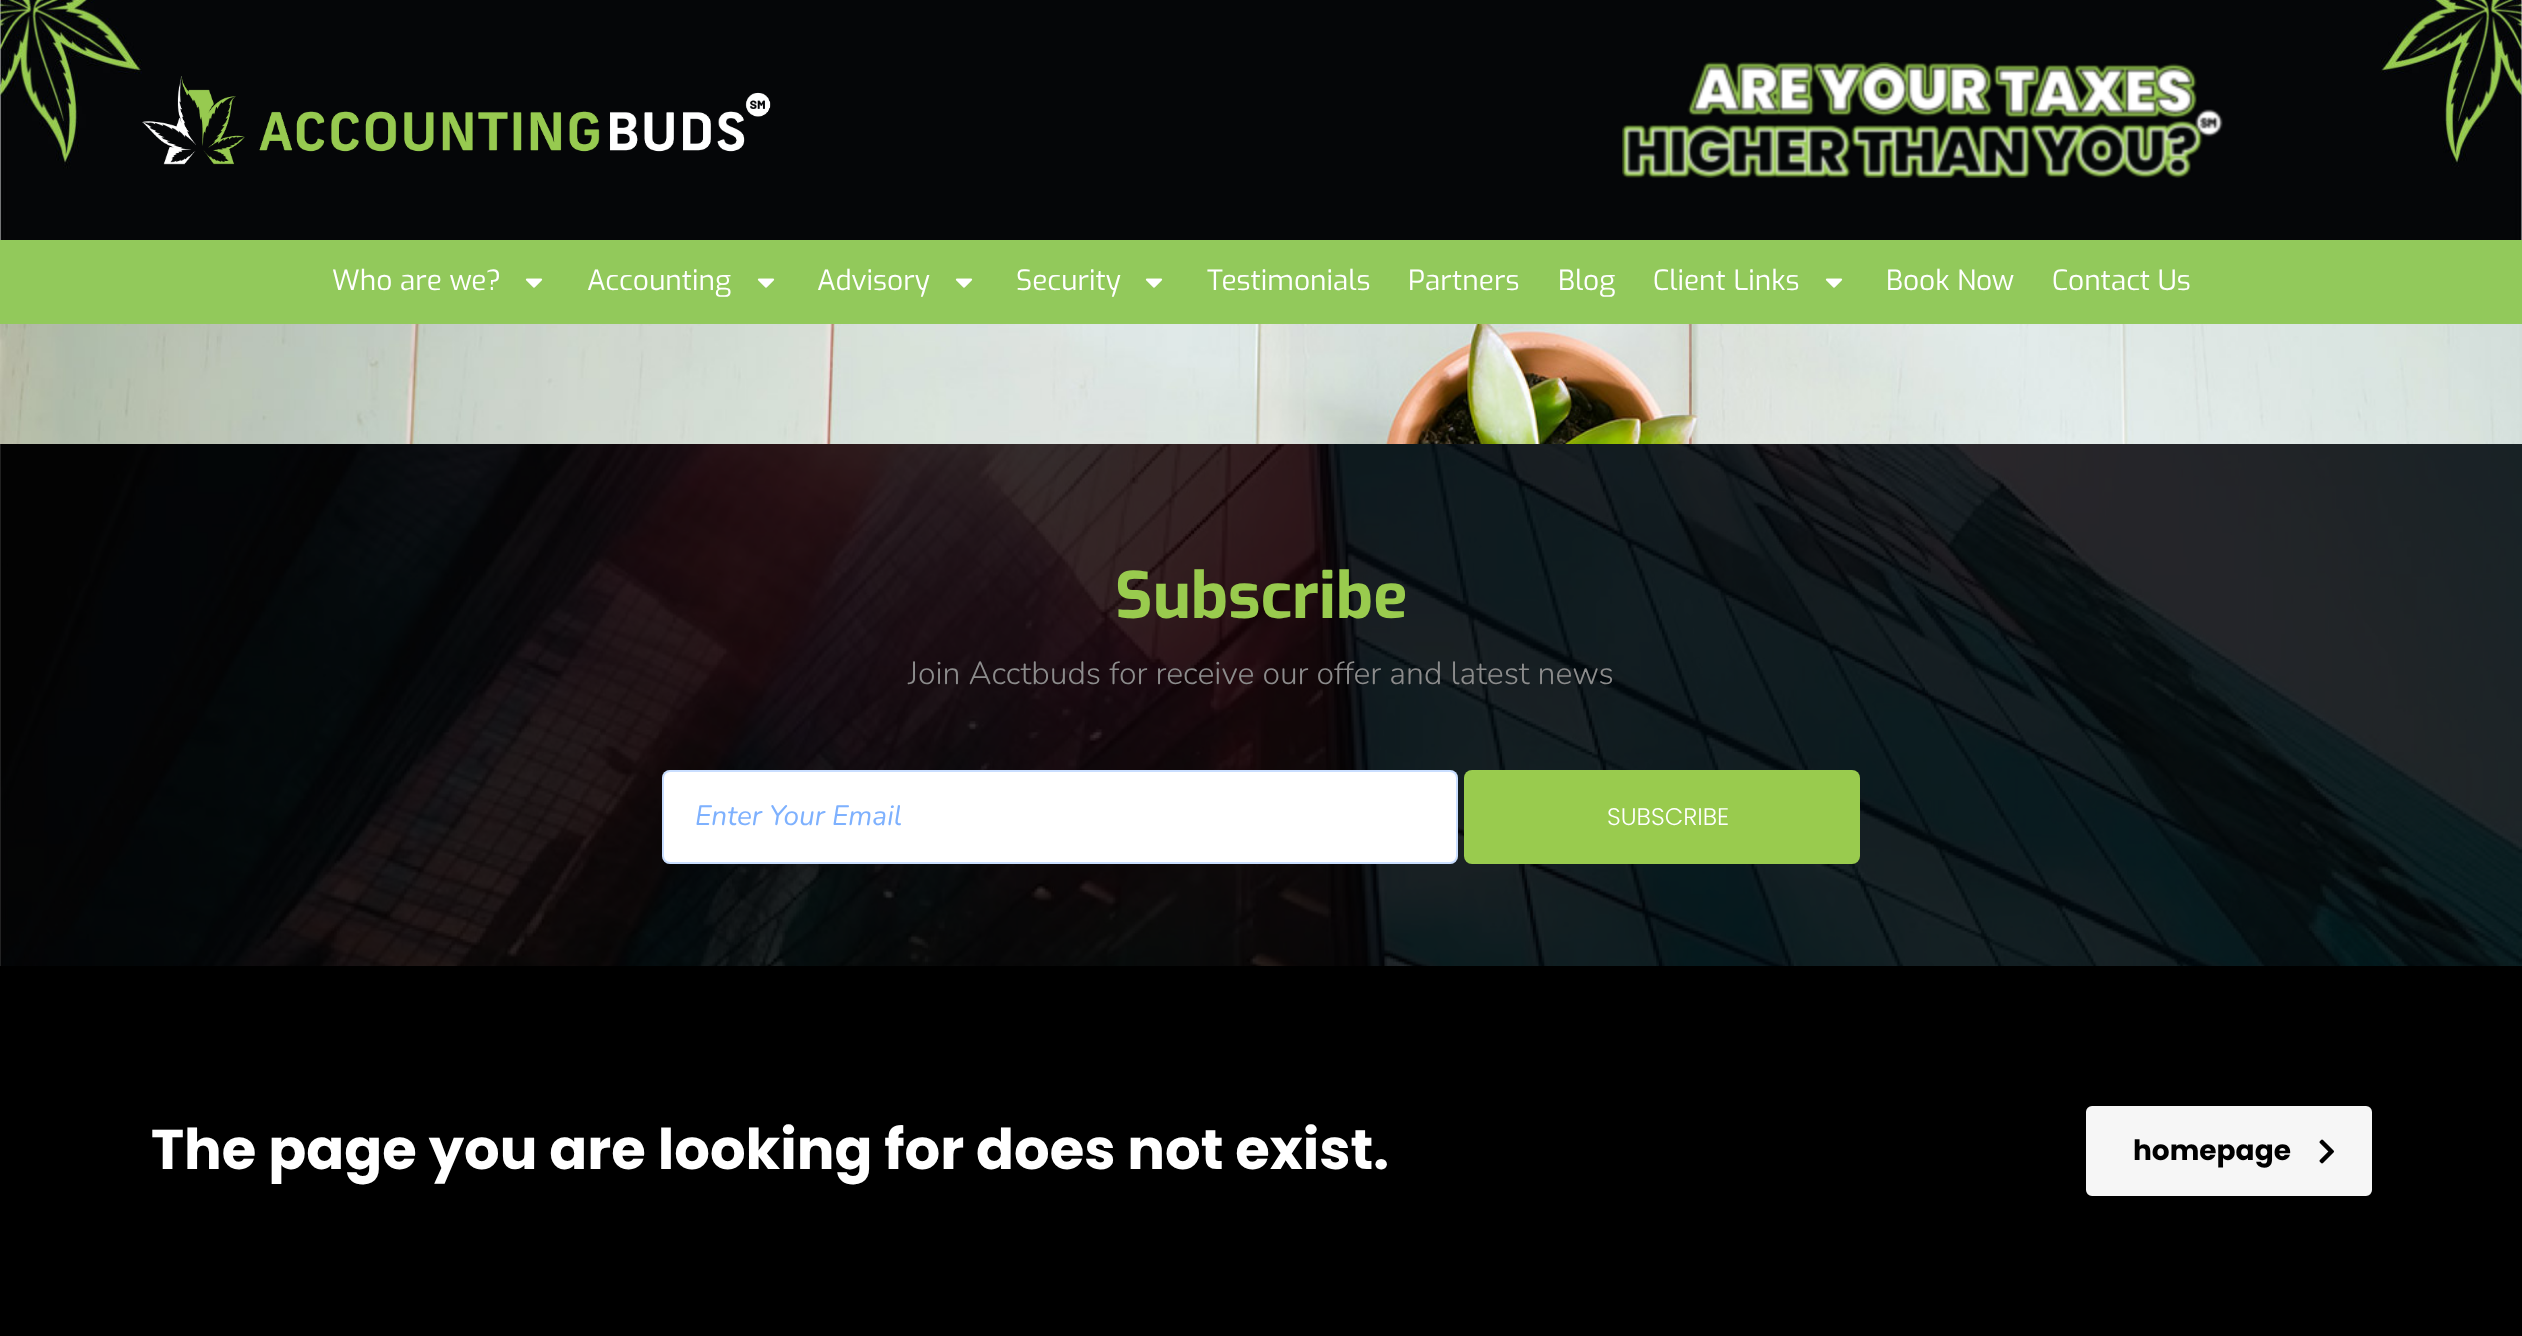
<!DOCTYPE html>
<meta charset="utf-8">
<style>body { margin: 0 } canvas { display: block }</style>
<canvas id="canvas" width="2522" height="1336"></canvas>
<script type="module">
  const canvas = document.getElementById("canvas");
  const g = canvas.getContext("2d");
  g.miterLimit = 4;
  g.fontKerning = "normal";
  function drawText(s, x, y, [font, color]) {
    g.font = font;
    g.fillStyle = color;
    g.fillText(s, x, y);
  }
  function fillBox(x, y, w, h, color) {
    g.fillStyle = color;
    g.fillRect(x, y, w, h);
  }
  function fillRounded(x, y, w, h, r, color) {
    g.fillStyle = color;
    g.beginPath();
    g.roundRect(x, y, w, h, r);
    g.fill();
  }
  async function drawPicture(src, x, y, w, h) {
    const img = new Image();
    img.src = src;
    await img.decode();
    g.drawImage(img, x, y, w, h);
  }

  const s1 = ["28px Exo", "#FFFFFF"];
  const s2 = ["bold 56px Poppins", "#FFFFFF"];
  const s3 = ["bold 28px Poppins", "#000000"];
  const s4 = ["bold 64px Exo", "#99CB4E"];
  const s5 = ["300 32px Nunito", "#8C8C8C"];
  const s6 = ["italic 28px Nunito", "#7EB1FE"];
  const s7 = ["300 24px Poppins", "#FFFFFF"];

  fillBox(0, 0, 2522, 1336, "#FFFFFF");
  await drawPicture("pic1.png", 0, 324, 2522, 120);
  await drawPicture("pic2.png", 0, 0, 2522, 240);
  await drawPicture("pic3.png", 142, 76, 629, 89);
  await drawPicture("pic4.png", 1622, 62, 601, 116);
  fillBox(0, 240, 2522, 84, "#92C95B");
  drawText("Who are we?", 332, 290, s1);
  await drawPicture("pic5.png", 525, 278, 18, 10);
  drawText("Accounting", 587, 290, s1);
  await drawPicture("pic5.png", 757, 278, 18, 10);
  drawText("Advisory", 817, 290, s1);
  await drawPicture("pic5.png", 955, 278, 18, 10);
  drawText("Security", 1016, 290, s1);
  await drawPicture("pic5.png", 1145, 278, 18, 10);
  drawText("Testimonials", 1207, 290, s1);
  drawText("Partners", 1408, 290, s1);
  drawText("Blog", 1558, 290, s1);
  drawText("Client Links", 1653, 290, s1);
  await drawPicture("pic5.png", 1825, 278, 18, 10);
  drawText("Book Now", 1886, 290, s1);
  drawText("Contact Us", 2052, 290, s1);
  fillBox(0, 966, 2522, 370, "#000000");
  drawText("The page you are looking for does not exist.", 151, 1169, s2);
  g.fillStyle = "#F6F6F6";
  g.beginPath();
  g.roundRect(2089, 1109, 280, 84, 3);
  g.fill();
  g.strokeStyle = "#F6F6F6";
  g.lineWidth = 6;
  g.stroke();
  drawText("homepage", 2133, 1160, s3);
  await drawPicture("pic6.png", 2319, 1139, 15, 25);
  await drawPicture("pic7.png", 0, 444, 2522, 522);
  drawText("Subscribe", 1115, 618, s4);
  drawText("Join Acctbuds for receive our offer and latest news", 908, 684, s5);
  fillRounded(662, 770, 796, 94, 8, "#FFFFFF");
  g.beginPath();
  g.roundRect(663, 771, 794, 92, 7);
  g.strokeStyle = "rgba(40, 125, 254, 0.25)";
  g.lineWidth = 2;
  g.stroke();
  drawText("Enter Your Email", 695, 825, s6);
  fillRounded(1464, 770, 396, 94, 8, "#99CB4E");
  drawText("SUBSCRIBE", 1607, 825, s7);
</script>
